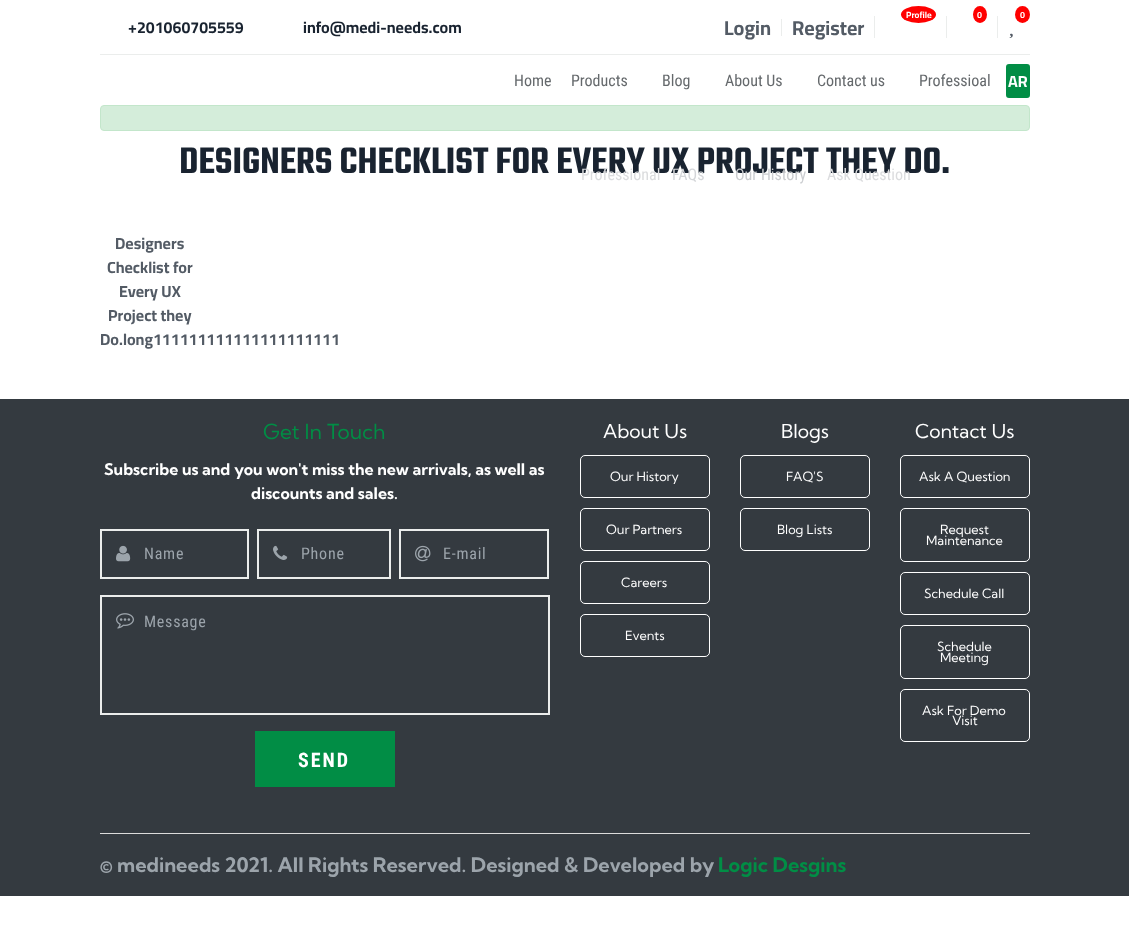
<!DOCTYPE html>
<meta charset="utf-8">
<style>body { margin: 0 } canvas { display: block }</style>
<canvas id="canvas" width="1129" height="925"></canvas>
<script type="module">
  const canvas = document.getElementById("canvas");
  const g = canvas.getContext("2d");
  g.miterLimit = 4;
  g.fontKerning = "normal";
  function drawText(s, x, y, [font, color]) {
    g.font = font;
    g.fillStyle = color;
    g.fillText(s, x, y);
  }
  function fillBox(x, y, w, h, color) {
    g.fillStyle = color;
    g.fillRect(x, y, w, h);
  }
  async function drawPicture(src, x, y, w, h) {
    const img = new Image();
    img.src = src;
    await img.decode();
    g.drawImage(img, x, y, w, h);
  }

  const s1 = ["bold 16px Cairo", "#192330"];
  const s2 = ["bold 9px Cairo", "#FFFFFF"];
  const s3 = ["bold 20px Cairo", "#535B65"];
  const s4 = ["16px Roboto Condensed", "#65696C"];
  const s5 = ["600 40px Teko", "#192330"];
  const s6 = ["16px Roboto Condensed", "#DBDCDE"];
  const s7 = ["16px Roboto Condensed", "#D4D6D9"];
  const s8 = ["16px Roboto Condensed", "#CBCDD0"];
  const s9 = ["bold 16px Cairo", "#FFFFFF"];
  const s10 = ["bold 16px Cairo", "#535B65"];
  const s11 = ["20.75px Kumbh Sans", "#018D45"];
  const s12 = ["bold 16px Kumbh Sans", "#FFFFFF"];
  const s13 = ["16px Roboto Condensed", "#9CA4AB"];
  const s14 = ["bold 20px Roboto Condensed", "#FFFFFF"];
  const s15 = ["19.25px Kumbh Sans", "#FFFFFF"];
  const s16 = ["12.75px Kumbh Sans", "#FFFFFF"];
  const s17 = ["bold 20px Kumbh Sans", "#9CA4AB"];
  const s18 = ["bold 20px Kumbh Sans", "#018D45"];

  fillBox(0, 0, 1129, 925, "#FFFFFF");
  fillBox(100, 54, 930, 1, "#EBEDEC");
  drawText("+201060705559", 128, 33, s1);
  drawText("info@medi-needs.com", 303, 33, s1);
  fillBox(874, 16, 1, 22, "#EBEDEC");
  g.fillStyle = "#FF0000";
  g.beginPath();
  g.ellipse(918.5, 14.5, 17.5, 8.5, 0, 0, Math.PI * 2);
  g.fill();
  drawText("Profile", 906, 18, s2);
  fillBox(946, 16, 1, 22, "#EBEDEC");
  g.fillStyle = "#FF0000";
  g.beginPath();
  g.ellipse(980, 14.5, 7, 8.5, 0, 0, Math.PI * 2);
  g.fill();
  drawText("0", 977, 18, s2);
  fillBox(997, 16, 1, 22, "#EBEDEC");
  g.fillStyle = "#FF0000";
  g.beginPath();
  g.ellipse(1022.5, 14.5, 7.5, 8.5, 0, 0, Math.PI * 2);
  g.fill();
  drawText("0", 1020, 18, s2);
  await drawPicture("pic1.png", 1009, 33, 4, 5);
  drawText("Login", 724, 35, s3);
  fillBox(781, 19, 1, 17, "#EBEDEC");
  drawText("Register", 792, 35, s3);
  drawText("Home", 514, 86, s4);
  drawText("Products", 571, 86, s4);
  drawText("DESIGNERS CHECKLIST FOR EVERY UX PROJECT THEY DO.", 179, 173, s5);
  drawText("Professional", 581, 180, s6);
  drawText("Blog", 662, 86, s4);
  drawText("FAQs", 672, 180, s7);
  drawText("About Us", 725, 86, s4);
  drawText("Our History", 735, 180, s8);
  drawText("Contact us", 817, 86, s4);
  drawText("Ask Question", 827, 180, s6);
  drawText("Professioal", 919, 86, s4);
  g.fillStyle = "#018D45";
  g.beginPath();
  g.roundRect(1007, 65, 22, 32, 2);
  g.fill();
  g.strokeStyle = "#018D45";
  g.lineWidth = 2;
  g.stroke();
  drawText("AR", 1008, 87, s9);
  g.fillStyle = "#D4EDDA";
  g.beginPath();
  g.roundRect(100.5, 105.5, 929, 25, 3.5);
  g.fill();
  g.strokeStyle = "#C3E6CB";
  g.lineWidth = 1;
  g.stroke();
  drawText("Designers", 115, 249, s10);
  drawText("Checklist for", 107, 273, s10);
  drawText("Every UX", 119, 297, s10);
  drawText("Project they", 108, 321, s10);
  drawText("Do.long111111111111111111111", 100, 345, s10);
  fillBox(0, 399, 1129, 497, "#343A40");
  drawText("Get In Touch", 263, 439, s11);
  drawText("Subscribe us and you won't miss the new arrivals, as well as", 104, 475, s12);
  drawText("discounts and sales.", 251, 499, s12);
  g.strokeStyle = "#EBEDEC";
  g.lineWidth = 2;
  g.strokeRect(101, 530, 147, 48);
  await drawPicture("pic2.png", 116, 545, 15, 17);
  g.letterSpacing = "0.75px";
  drawText("Name", 144, 559, s13);
  g.strokeRect(258, 530, 132, 48);
  await drawPicture("pic3.png", 273, 545, 15, 15);
  drawText("Phone", 301, 559, s13);
  g.strokeRect(400, 530, 148, 48);
  await drawPicture("pic4.png", 415, 545, 16, 17);
  drawText("E-mail", 443, 559, s13);
  g.strokeRect(101, 596, 448, 118);
  await drawPicture("pic5.png", 116, 613, 18, 16);
  drawText("Message", 144, 627, s13);
  g.strokeStyle = "#018D45";
  g.strokeRect(256, 732, 138, 54);
  g.save();
  g.beginPath();
  g.rect(257, 733, 136, 52);
  g.clip();
  g.fillStyle = "#018D45";
  g.beginPath();
  g.moveTo(210, 733);
  g.lineTo(414, 733);
  g.lineTo(439, 785);
  g.lineTo(235, 785);
  g.closePath();
  g.fill();
  g.restore();
  g.letterSpacing = "2px";
  drawText("SEND", 298, 767, s14);
  g.letterSpacing = "0px";
  drawText("About Us", 603, 438, s15);
  g.beginPath();
  g.roundRect(580.5, 455.5, 129, 42, 4.5);
  g.strokeStyle = "#FFFFFF";
  g.lineWidth = 1;
  g.stroke();
  drawText("Our History", 610, 481, s16);
  g.beginPath();
  g.roundRect(580.5, 508.5, 129, 42, 4.5);
  g.stroke();
  drawText("Our Partners", 606, 534, s16);
  g.beginPath();
  g.roundRect(580.5, 561.5, 129, 42, 4.5);
  g.stroke();
  drawText("Careers", 621, 587, s16);
  g.beginPath();
  g.roundRect(580.5, 614.5, 129, 42, 4.5);
  g.stroke();
  drawText("Events", 625, 640, s16);
  drawText("Blogs", 781, 438, s15);
  g.beginPath();
  g.roundRect(740.5, 455.5, 129, 42, 4.5);
  g.stroke();
  drawText("FAQ'S", 786, 481, s16);
  g.beginPath();
  g.roundRect(740.5, 508.5, 129, 42, 4.5);
  g.stroke();
  drawText("Blog Lists", 777, 534, s16);
  drawText("Contact Us", 915, 438, s15);
  g.beginPath();
  g.roundRect(900.5, 455.5, 129, 42, 4.5);
  g.stroke();
  drawText("Ask A Question", 919, 481, s16);
  g.beginPath();
  g.roundRect(900.5, 508.5, 129, 53, 4.5);
  g.stroke();
  drawText("Request", 940, 534, s16);
  drawText("Maintenance", 926, 545, s16);
  g.beginPath();
  g.roundRect(900.5, 572.5, 129, 42, 4.5);
  g.stroke();
  drawText("Schedule Call", 924, 598, s16);
  g.beginPath();
  g.roundRect(900.5, 625.5, 129, 53, 4.5);
  g.stroke();
  drawText("Schedule", 937, 651, s16);
  drawText("Meeting", 940, 662, s16);
  g.beginPath();
  g.roundRect(900.5, 689.5, 129, 52, 4.5);
  g.stroke();
  drawText("Ask For Demo", 922, 715, s16);
  drawText("Visit", 952, 725, s16);
  fillBox(100, 833, 930, 1, "#DBDBDB");
  drawText("© medineeds 2021. All Rights Reserved. Designed & Developed by", 100, 872, s17);
  drawText("Logic Desgins", 718, 872, s18);
</script>
